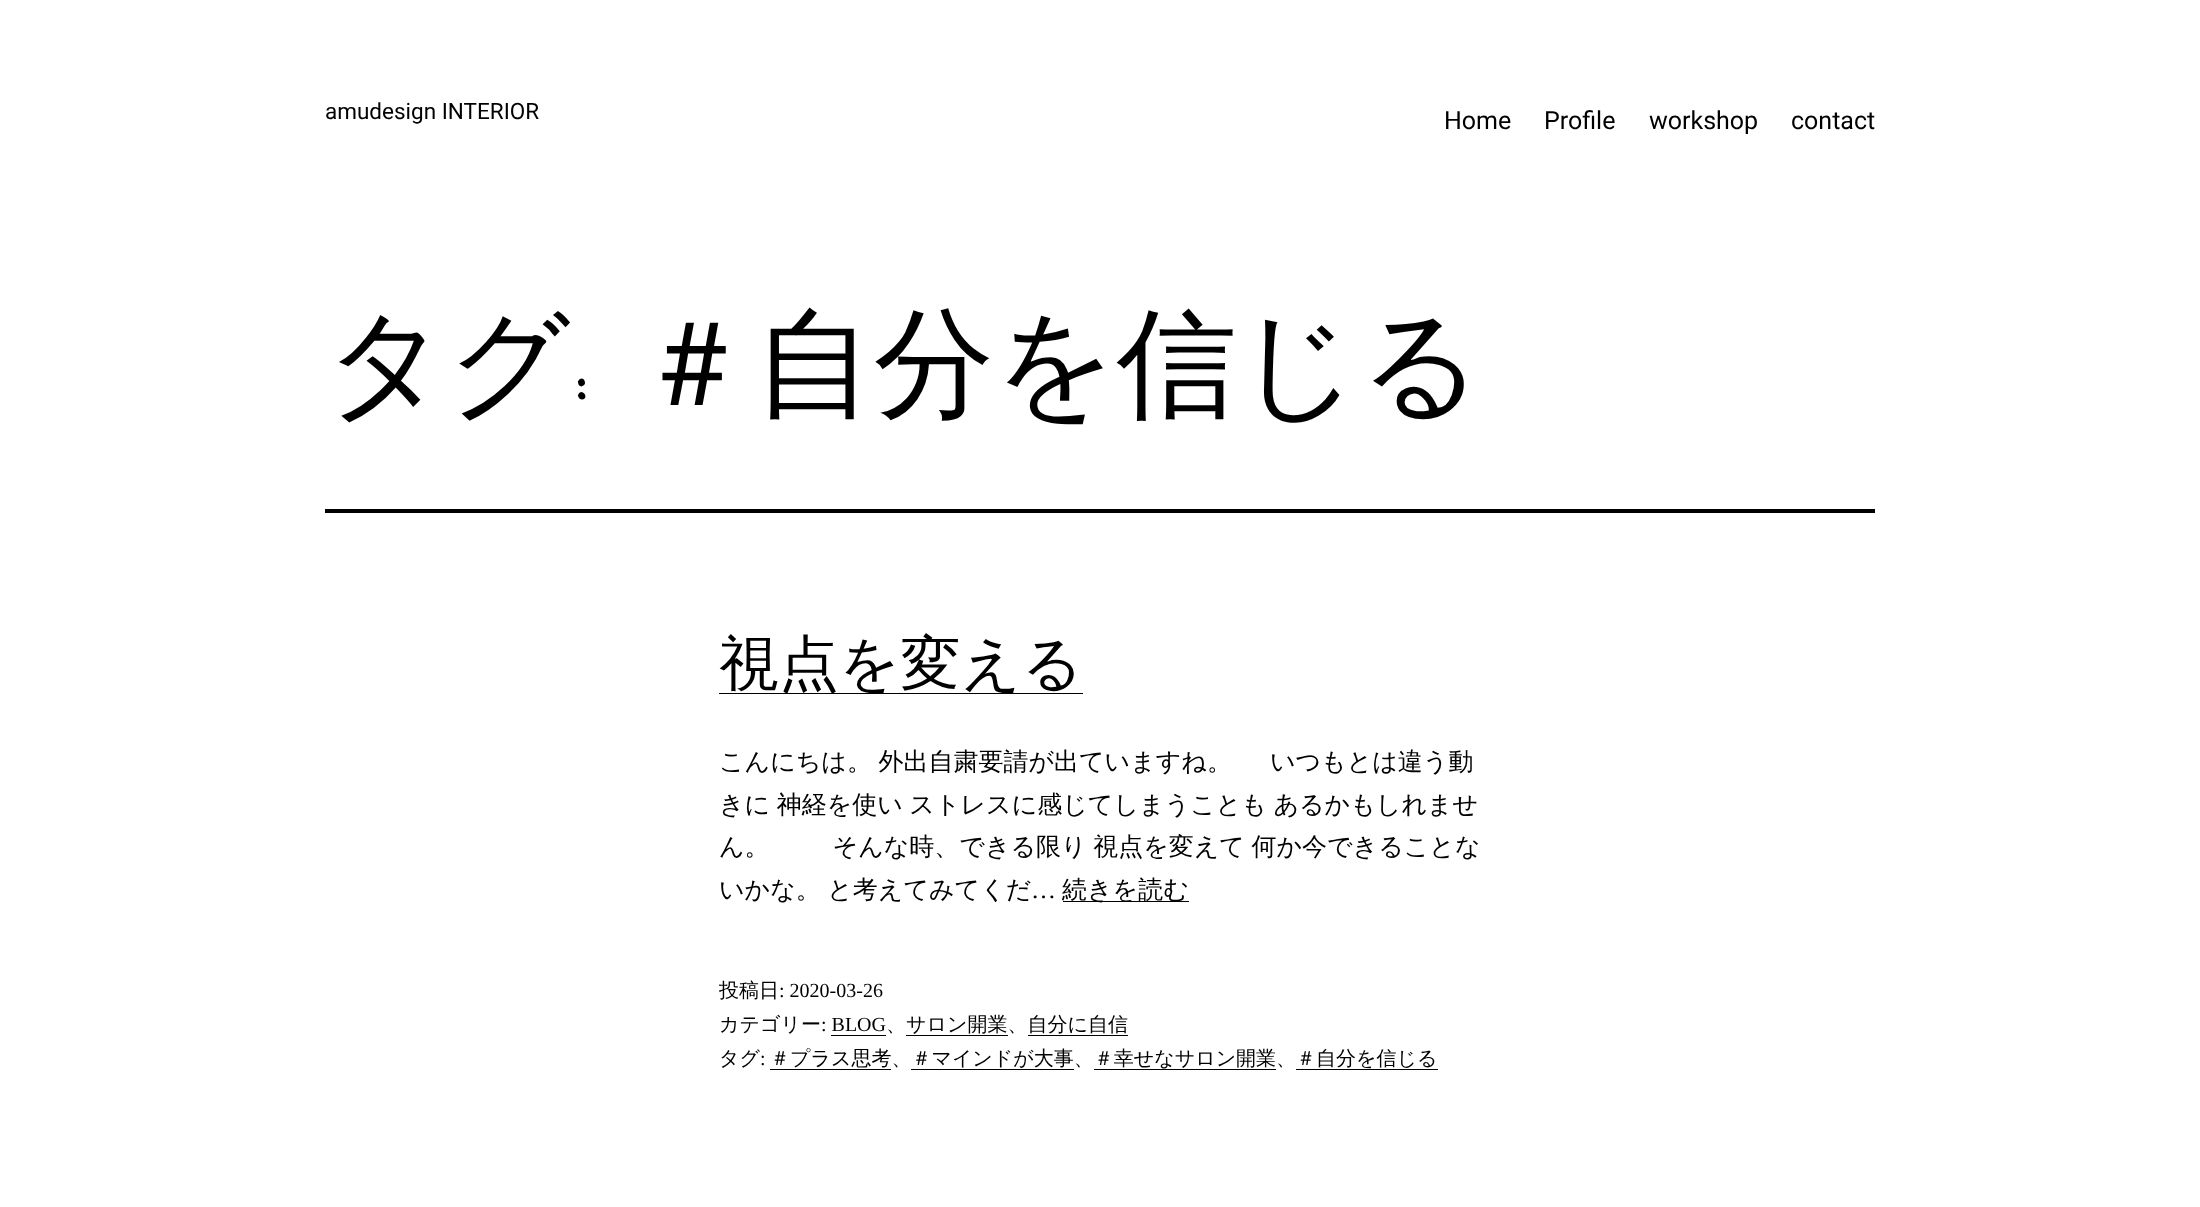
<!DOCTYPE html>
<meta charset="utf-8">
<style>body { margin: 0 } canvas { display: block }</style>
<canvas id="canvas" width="2200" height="1207"></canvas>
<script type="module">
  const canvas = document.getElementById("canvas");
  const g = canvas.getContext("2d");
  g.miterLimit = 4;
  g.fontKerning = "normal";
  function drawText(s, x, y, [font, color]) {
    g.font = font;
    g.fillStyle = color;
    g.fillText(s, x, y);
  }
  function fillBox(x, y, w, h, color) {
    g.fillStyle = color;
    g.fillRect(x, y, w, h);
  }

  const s1 = ["22.5px Roboto", "#000000"];
  const s2 = ["25px Roboto", "#000000"];
  const s3 = ["500 120px WenQuanYi Zen Hei", "#000000"];
  const s4 = ["120px Just Me Again Down Here", "#000000"];
  const s5 = ["500 60px WenQuanYi Zen Hei", "#000000"];
  const s6 = ["500 25px WenQuanYi Zen Hei", "#000000"];
  const s7 = ["25px Liberation Serif", "#000000"];
  const s8 = ["500 20px WenQuanYi Zen Hei", "#000000"];
  const s9 = ["20px Liberation Serif", "#000000"];

  fillBox(0, 0, 2200, 1207, "#FFFFFF");
  drawText("amudesign INTERIOR", 325, 119, s1);
  drawText("Home", 1444, 129, s2);
  drawText("Profile", 1544, 129, s2);
  drawText("workshop", 1649, 129, s2);
  drawText("contact", 1791, 129, s2);
  fillBox(325, 509, 1550, 4, "#000000");
  drawText("タグ", 325, 405, s3);
  drawText(":", 571, 405, s4);
  drawText("＃自分を信じる", 634, 405, s3);
  fillBox(719, 693, 364, 1, "#000000");
  drawText("視点を変える", 719, 684, s5);
  g.wordSpacing = "-1px";
  drawText("こんにちは。 外出自粛要請が出ていますね。 　 いつもとは違う動", 719, 770, s6);
  drawText("きに 神経を使い ストレスに感じてしまうことも あるかもしれませ", 719, 813, s6);
  drawText("ん。 　　 そんな時、できる限り 視点を変えて 何か今できることな", 719, 855, s6);
  drawText("いかな。 と考えてみてくだ", 719, 898, s6);
  g.wordSpacing = "0px";
  drawText("…", 1031, 898, s7);
  fillBox(1063, 901, 126, 1, "#000000");
  drawText("続きを読む", 1062, 898, s6);
  drawText("投稿日", 719, 997, s8);
  drawText(": 2020-03-26", 779, 997, s9);
  drawText("カテゴリー", 719, 1031, s8);
  drawText(": BLOG", 821, 1031, s9);
  drawText("、サロン開業、自分に自信", 886, 1031, s8);
  fillBox(831, 1035, 55, 1, "#000000");
  fillBox(906, 1035, 102, 1, "#000000");
  fillBox(1028, 1035, 100, 1, "#000000");
  drawText("タグ", 719, 1065, s8);
  drawText(":", 760, 1065, s9);
  drawText("＃プラス思考、＃マインドが大事、＃幸せなサロン開業、＃自分を信じる", 770, 1065, s8);
  fillBox(770, 1069, 121, 1, "#000000");
  fillBox(911, 1069, 163, 1, "#000000");
  fillBox(1094, 1069, 182, 1, "#000000");
  fillBox(1296, 1069, 142, 1, "#000000");
</script>
